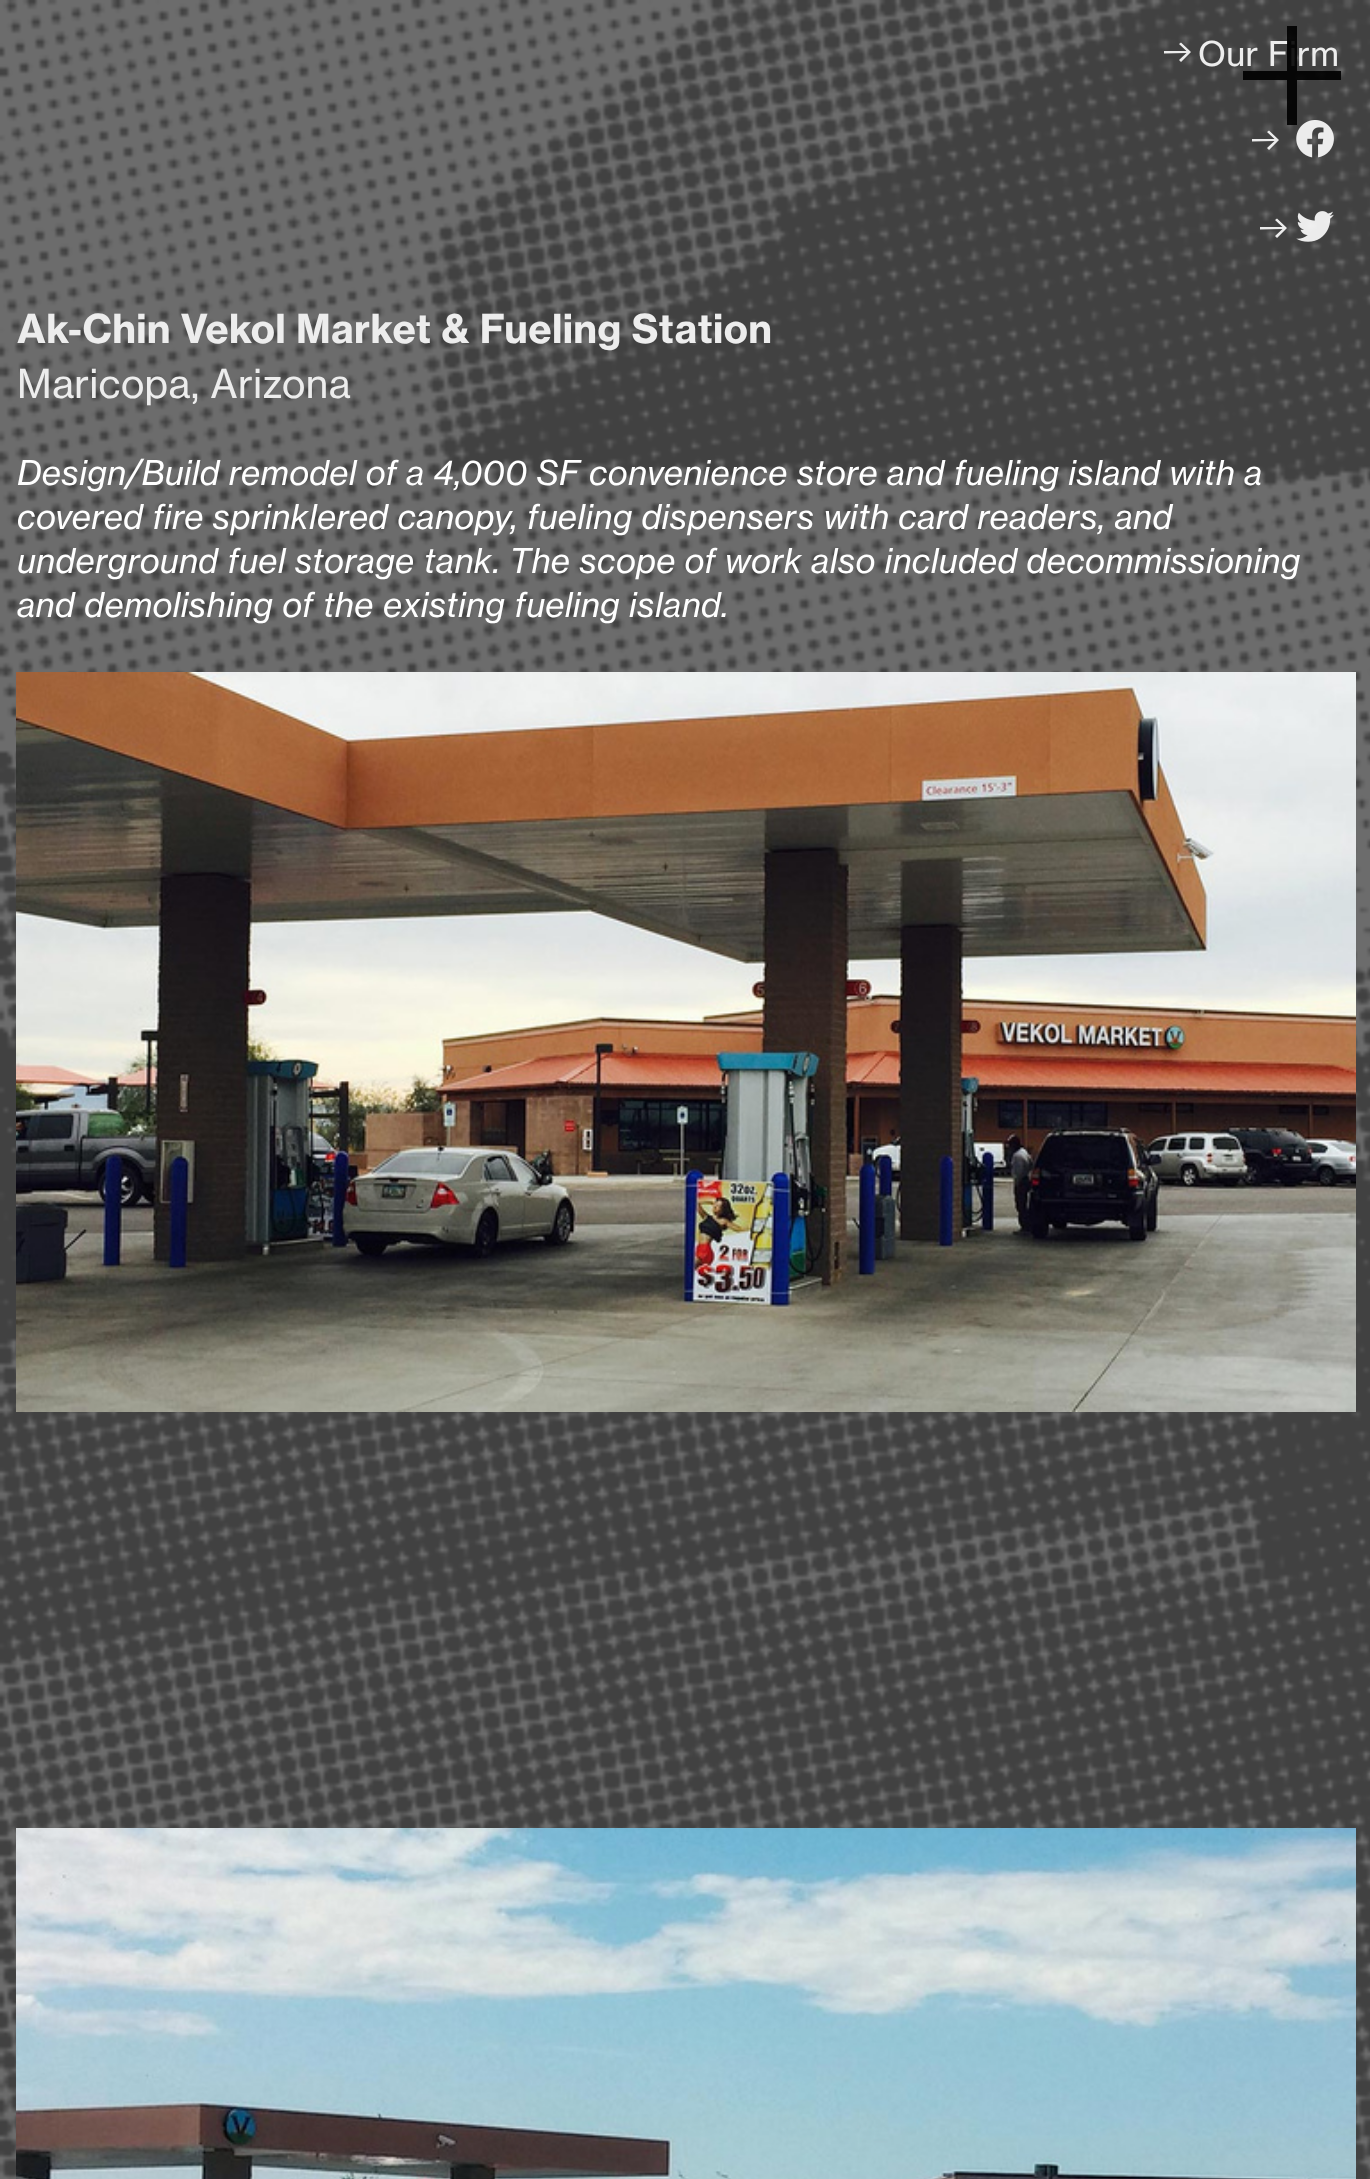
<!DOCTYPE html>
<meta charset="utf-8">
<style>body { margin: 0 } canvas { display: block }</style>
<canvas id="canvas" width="1370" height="2179"></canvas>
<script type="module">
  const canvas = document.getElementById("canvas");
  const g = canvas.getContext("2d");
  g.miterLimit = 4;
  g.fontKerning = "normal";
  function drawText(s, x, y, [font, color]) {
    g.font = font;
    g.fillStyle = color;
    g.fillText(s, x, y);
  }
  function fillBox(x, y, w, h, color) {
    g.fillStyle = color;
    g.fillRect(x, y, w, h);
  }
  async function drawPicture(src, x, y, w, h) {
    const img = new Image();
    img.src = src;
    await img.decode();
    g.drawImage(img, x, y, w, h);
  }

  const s1 = ["33.7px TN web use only", "#EDEDED"];
  const s2 = ["bold 39.25px TN web use only", "#EDEDED"];
  const s3 = ["39.25px TN web use only", "#EDEDED"];
  const s4 = ["italic 33.7px TN web use only", "#FFFFFF"];

  fillBox(0, 0, 1370, 2179, "#FFFFFF");
  await drawPicture("pic3.png", 0, 0, 1370, 2179);
  g.letterSpacing = "0.35px";
  drawText("Our Firm", 1198, 66, s1);
  await drawPicture("pic1.png", 1296, 120, 38, 38);
  g.fillStyle = "rgba(0, 0, 0, 0.9)";
  g.beginPath();
  g.moveTo(1297, 71);
  g.lineTo(1297, 26);
  g.lineTo(1287, 26);
  g.lineTo(1287, 71);
  g.lineTo(1243, 71);
  g.lineTo(1243, 80);
  g.lineTo(1287, 80);
  g.lineTo(1287, 125);
  g.lineTo(1297, 125);
  g.lineTo(1297, 80);
  g.lineTo(1341, 80);
  g.lineTo(1341, 71);
  g.closePath();
  g.fill();
  g.fillStyle = "rgba(255, 255, 255, 0.9)";
  g.beginPath();
  g.moveTo(1164, 53.5);
  g.lineTo(1186.5, 53);
  g.lineTo(1179, 60);
  g.lineTo(1181, 62);
  g.lineTo(1191, 52);
  g.lineTo(1181, 42.5);
  g.lineTo(1179, 44);
  g.lineTo(1186.5, 51);
  g.lineTo(1164, 51);
  g.closePath();
  g.fill();
  g.beginPath();
  g.moveTo(1252, 141.5);
  g.lineTo(1274.5, 141);
  g.lineTo(1267, 148);
  g.lineTo(1269, 150);
  g.lineTo(1279, 140);
  g.lineTo(1269, 130.5);
  g.lineTo(1267, 132);
  g.lineTo(1274.5, 139);
  g.lineTo(1252, 139);
  g.closePath();
  g.fill();
  g.beginPath();
  g.moveTo(1260, 229.5);
  g.lineTo(1282.5, 229);
  g.lineTo(1275, 236);
  g.lineTo(1277, 238);
  g.lineTo(1287, 228);
  g.lineTo(1277, 218.5);
  g.lineTo(1275, 220);
  g.lineTo(1282.5, 227);
  g.lineTo(1260, 227);
  g.closePath();
  g.fill();
  await drawPicture("pic2.png", 1296, 211, 38, 31);
  drawText("Ak-Chin Vekol Market & Fueling Station", 17, 343, s2);
  drawText("Maricopa, Arizona", 17, 398, s3);
  g.wordSpacing = "-0.25px";
  drawText("Design/Build remodel of a 4,000 SF convenience store and fueling island with a", 17, 485, s4);
  drawText("covered fire sprinklered canopy, fueling dispensers with card readers, and", 17, 529, s4);
  drawText("underground fuel storage tank. The scope of work also included decommissioning", 17, 573, s4);
  g.wordSpacing = "0px";
  drawText("and demolishing of the existing fueling island.", 17, 617, s4);
  await drawPicture("pic4.png", 16, 672, 1340, 740);
  await drawPicture("pic5.png", 16, 1828, 1340, 351);
</script>
